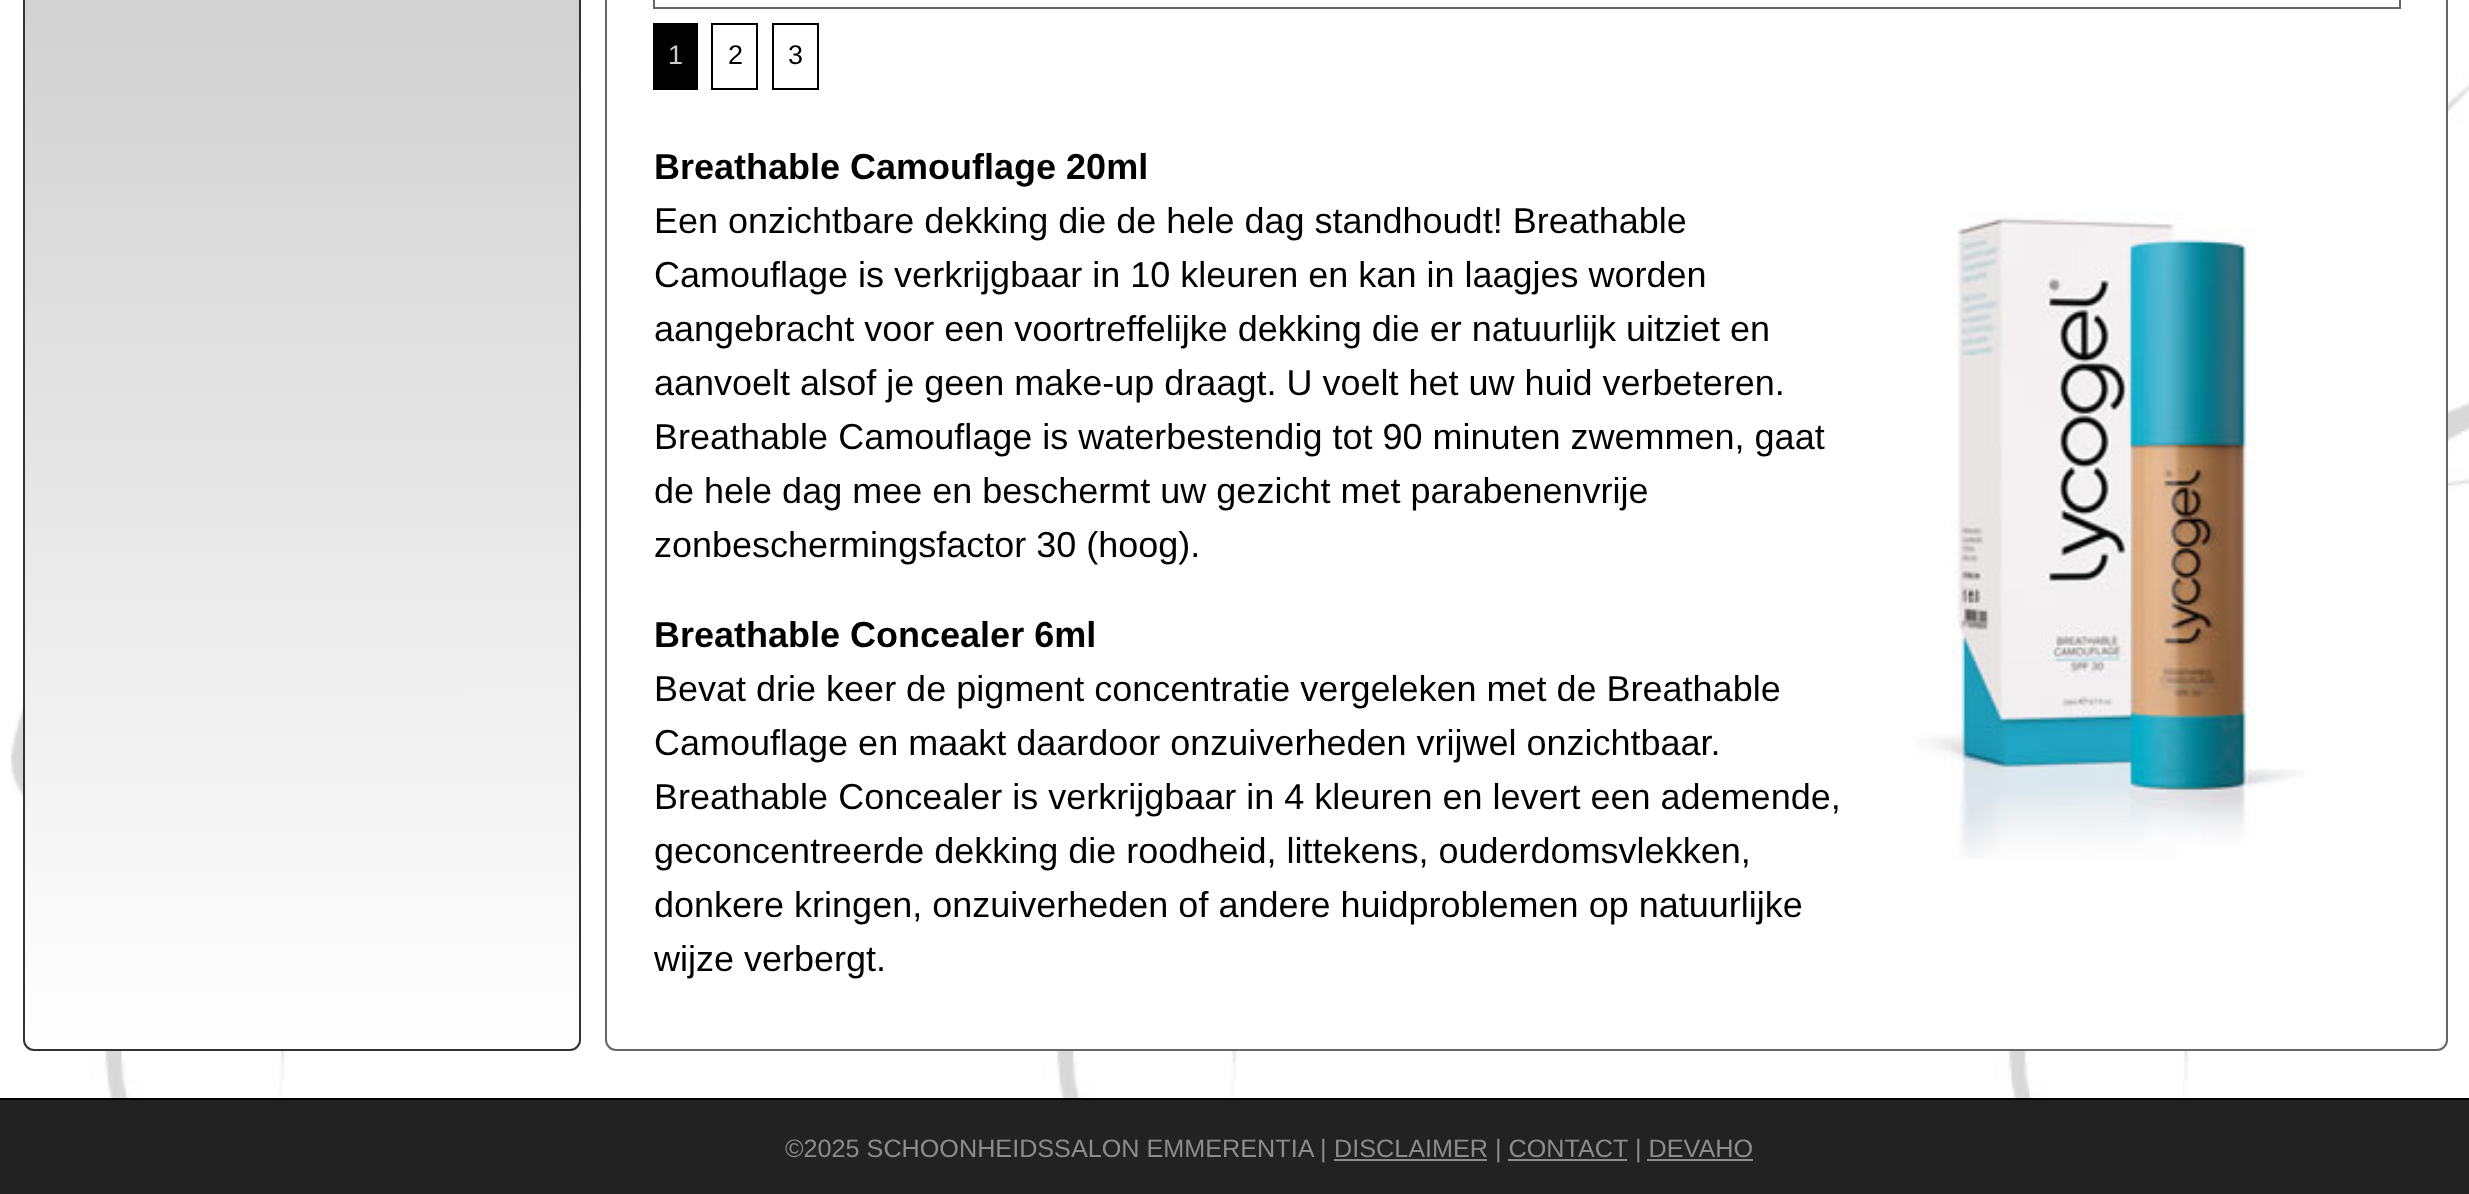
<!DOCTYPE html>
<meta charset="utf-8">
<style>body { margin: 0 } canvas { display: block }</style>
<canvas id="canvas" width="2469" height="1194"></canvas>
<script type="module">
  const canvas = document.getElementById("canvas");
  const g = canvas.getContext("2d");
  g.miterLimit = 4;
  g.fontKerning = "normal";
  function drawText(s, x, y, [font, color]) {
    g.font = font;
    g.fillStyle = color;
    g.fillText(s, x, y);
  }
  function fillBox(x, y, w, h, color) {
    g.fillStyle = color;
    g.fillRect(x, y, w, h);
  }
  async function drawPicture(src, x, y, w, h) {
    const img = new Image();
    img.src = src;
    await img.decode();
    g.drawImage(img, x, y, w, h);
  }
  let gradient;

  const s1 = ["27px Liberation Sans", "#CCCCCC"];
  const s2 = ["27px Liberation Sans", "#000000"];
  const s3 = ["bold 36px Liberation Sans", "#000000"];
  const s4 = ["36px Liberation Sans", "#000000"];
  const s5 = ["25.2px Liberation Sans", "#8C8C8C"];

  fillBox(0, 0, 2469, 1194, "#FFFFFF");
  await drawPicture("pic1.png", 10, 0, 2459, 1098);
  fillBox(23, 0, 2425, 1051, "#FFFFFF");
  g.save();
  g.beginPath();
  g.roundRect(23, -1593, 558, 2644, 11);
  g.clip();
  gradient = g.createLinearGradient(301, -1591, 302, 1049);
  gradient.addColorStop(0, "#8C8C8C");
  gradient.addColorStop(1, "#FFFFFF");
  g.fillStyle = gradient;
  g.fillRect(23, 0, 558, 1049);
  g.restore();
  g.beginPath();
  g.roundRect(24, -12, 556, 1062, 10);
  g.strokeStyle = "#333333";
  g.lineWidth = 2;
  g.stroke();
  g.beginPath();
  g.roundRect(606, -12, 1841, 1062, 10);
  g.strokeStyle = "#666666";
  g.stroke();
  g.strokeRect(654, -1, 1746, 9);
  fillBox(653, 23, 45, 67, "#000000");
  drawText("1", 668, 64, s1);
  g.strokeStyle = "#000000";
  g.strokeRect(712, 24, 45, 65);
  drawText("2", 728, 64, s2);
  g.strokeRect(773, 24, 45, 65);
  drawText("3", 788, 64, s2);
  drawText("Breathable Camouflage 20ml", 654, 179, s3);
  drawText("Een onzichtbare dekking die de hele dag standhoudt! Breathable", 654, 233, s4);
  drawText("Camouflage is verkrijgbaar in 10 kleuren en kan in laagjes worden", 654, 287, s4);
  drawText("aangebracht voor een voortreffelijke dekking die er natuurlijk uitziet en", 654, 341, s4);
  drawText("aanvoelt alsof je geen make-up draagt. U voelt het uw huid verbeteren.", 654, 395, s4);
  drawText("Breathable Camouflage is waterbestendig tot 90 minuten zwemmen, gaat", 654, 449, s4);
  drawText("de hele dag mee en beschermt uw gezicht met parabenenvrije", 654, 503, s4);
  drawText("zonbeschermingsfactor 30 (hoog).", 654, 557, s4);
  drawText("Breathable Concealer 6ml", 654, 647, s3);
  drawText("Bevat drie keer de pigment concentratie vergeleken met de Breathable", 654, 701, s4);
  drawText("Camouflage en maakt daardoor onzuiverheden vrijwel onzichtbaar.", 654, 755, s4);
  drawText("Breathable Concealer is verkrijgbaar in 4 kleuren en levert een ademende,", 654, 809, s4);
  drawText("geconcentreerde dekking die roodheid, littekens, ouderdomsvlekken,", 654, 863, s4);
  drawText("donkere kringen, onzuiverheden of andere huidproblemen op natuurlijke", 654, 917, s4);
  drawText("wijze verbergt.", 654, 971, s4);
  await drawPicture("pic2.png", 1915, 212, 390, 648);
  fillBox(0, 1100, 2469, 94, "#222222");
  fillBox(0, 1098, 2469, 2, "#000000");
  drawText("©2025 SCHOONHEIDSSALON EMMERENTIA |", 785, 1157, s5);
  fillBox(1334, 1159, 153, 2, "#8C8C8C");
  drawText("DISCLAIMER | CONTACT", 1334, 1157, s5);
  drawText("| DEVAHO", 1635, 1157, s5);
  fillBox(1508, 1159, 119, 2, "#8C8C8C");
  fillBox(1647, 1159, 106, 2, "#8C8C8C");
</script>
